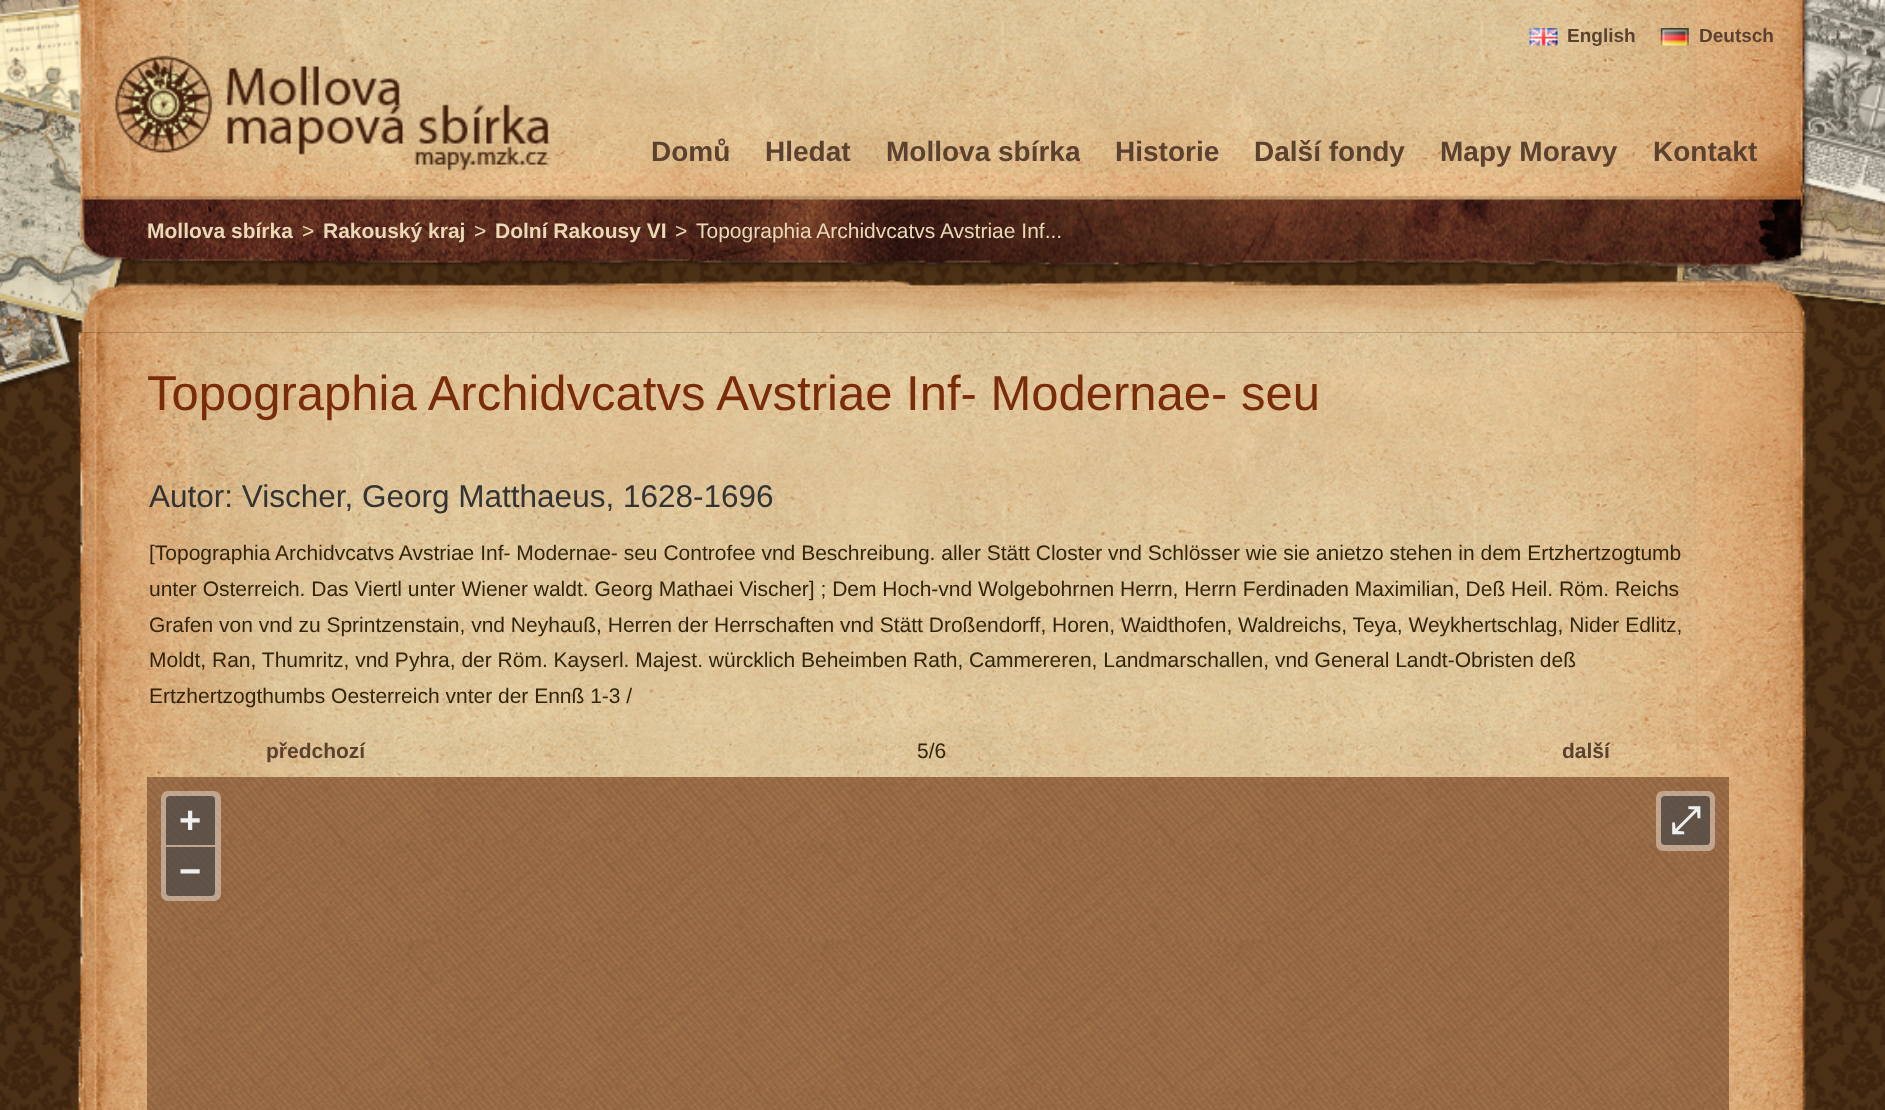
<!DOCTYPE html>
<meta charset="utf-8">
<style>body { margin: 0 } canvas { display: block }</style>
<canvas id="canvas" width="1885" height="1110"></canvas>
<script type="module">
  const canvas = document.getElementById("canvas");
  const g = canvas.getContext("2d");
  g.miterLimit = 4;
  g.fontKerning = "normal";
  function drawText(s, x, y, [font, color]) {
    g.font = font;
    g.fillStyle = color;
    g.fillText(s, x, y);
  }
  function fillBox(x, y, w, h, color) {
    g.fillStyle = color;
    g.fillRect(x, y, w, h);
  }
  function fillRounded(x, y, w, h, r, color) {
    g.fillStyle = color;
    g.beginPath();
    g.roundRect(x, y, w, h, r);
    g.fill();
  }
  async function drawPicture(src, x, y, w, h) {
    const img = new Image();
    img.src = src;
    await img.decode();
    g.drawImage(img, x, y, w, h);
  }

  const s1 = ["bold 19px Liberation Sans", "#5B412F"];
  const s2 = ["bold 28px Liberation Sans", "#5B412F"];
  const s3 = ["bold 21px Liberation Sans", "#EAD9B7"];
  const s4 = ["21px Liberation Sans", "#EAD9B7"];
  const s5 = ["49px Liberation Sans", "#7A2B0A"];
  const s6 = ["31.5px Liberation Sans", "#333333"];
  const s7 = ["21px Liberation Sans", "#32240B"];
  const s8 = ["bold 21px Liberation Sans", "#5B412F"];
  const s9 = ["bold 38px Liberation Sans", "#EEEEEE"];
  const s10 = ["bold 38px FreeSerif", "#EEEEEE"];

  fillBox(0, 0, 1885, 1110, "#FFFFFF");
  await drawPicture("pic1.png", 0, 0, 1885, 1110);
  await drawPicture("pic2.png", 0, 0, 1885, 389);
  await drawPicture("pic3.png", 77, 0, 1733, 271);
  await drawPicture("pic4.png", 1529, 28, 29, 18);
  drawText("English", 1567, 42, s1);
  await drawPicture("pic5.png", 1660, 28, 29, 18);
  drawText("Deutsch", 1699, 42, s1);
  await drawPicture("pic6.png", 115, 55, 435, 116);
  drawText("Domů", 651, 161, s2);
  drawText("Hledat", 765, 161, s2);
  g.save();
  g.beginPath();
  g.rect(886, 135, 194, 35);
  g.clip();
  drawText("Mollova sbírka", 886, 161, s2);
  g.restore();
  drawText("Historie", 1115, 161, s2);
  drawText("Další fondy", 1254, 161, s2);
  drawText("Mapy Moravy", 1440, 161, s2);
  drawText("Kontakt", 1653, 161, s2);
  drawText("Mollova sbírka", 147, 238, s3);
  drawText(">", 302, 238, s4);
  drawText("Rakouský kraj", 323, 238, s3);
  drawText(">", 474, 238, s4);
  drawText("Dolní Rakousy VI", 495, 238, s3);
  drawText(">", 675, 238, s4);
  drawText("Topographia Archidvcatvs Avstriae Inf...", 696, 238, s4);
  await drawPicture("pic7.png", 80, 280, 1727, 53);
  await drawPicture("pic8.png", 78, 332, 1728, 778);
  drawText("Topographia Archidvcatvs Avstriae Inf- Modernae- seu", 147, 410, s5);
  drawText("Autor: Vischer, Georg Matthaeus, 1628-1696", 149, 507, s6);
  drawText("[Topographia Archidvcatvs Avstriae Inf- Modernae- seu Controfee vnd Beschreibung. aller Stätt Closter vnd Schlösser wie sie anietzo stehen in dem Ertzhertzogtumb", 149, 560, s7);
  drawText("unter Osterreich. Das Viertl unter Wiener waldt. Georg Mathaei Vischer] ; Dem Hoch-vnd Wolgebohrnen Herrn, Herrn Ferdinaden Maximilian, Deß Heil. Röm. Reichs", 149, 596, s7);
  drawText("Grafen von vnd zu Sprintzenstain, vnd Neyhauß, Herren der Herrschaften vnd Stätt Droßendorff, Horen, Waidthofen, Waldreichs, Teya, Weykhertschlag, Nider Edlitz,", 149, 632, s7);
  drawText("Moldt, Ran, Thumritz, vnd Pyhra, der Röm. Kayserl. Majest. würcklich Beheimben Rath, Cammereren, Landmarschallen, vnd General Landt-Obristen deß", 149, 667, s7);
  drawText("Ertzhertzogthumbs Oesterreich vnter der Ennß 1-3 /", 149, 703, s7);
  drawText("předchozí", 266, 758, s8);
  drawText("5/6", 917, 758, s7);
  drawText("další", 1562, 758, s8);
  await drawPicture("pic9.png", 147, 777, 1582, 333);
  fillRounded(161, 791, 60, 110, 7, "rgba(255, 255, 255, 0.4)");
  g.fillStyle = "rgba(0, 0, 0, 0.5)";
  g.beginPath();
  g.roundRect(166, 796, 49, 49, [4, 4, 0, 0]);
  g.fill();
  drawText("+", 179, 833, s9);
  g.fillStyle = "rgba(0, 0, 0, 0.5)";
  g.beginPath();
  g.roundRect(166, 847, 49, 49, [0, 0, 4, 4]);
  g.fill();
  drawText("−", 179, 884, s9);
  fillRounded(1656, 791, 59, 60, 7, "rgba(255, 255, 255, 0.4)");
  fillRounded(1661, 796, 49, 49, 4, "rgba(0, 0, 0, 0.5)");
  drawText("⤢", 1670, 833, s10);
</script>
